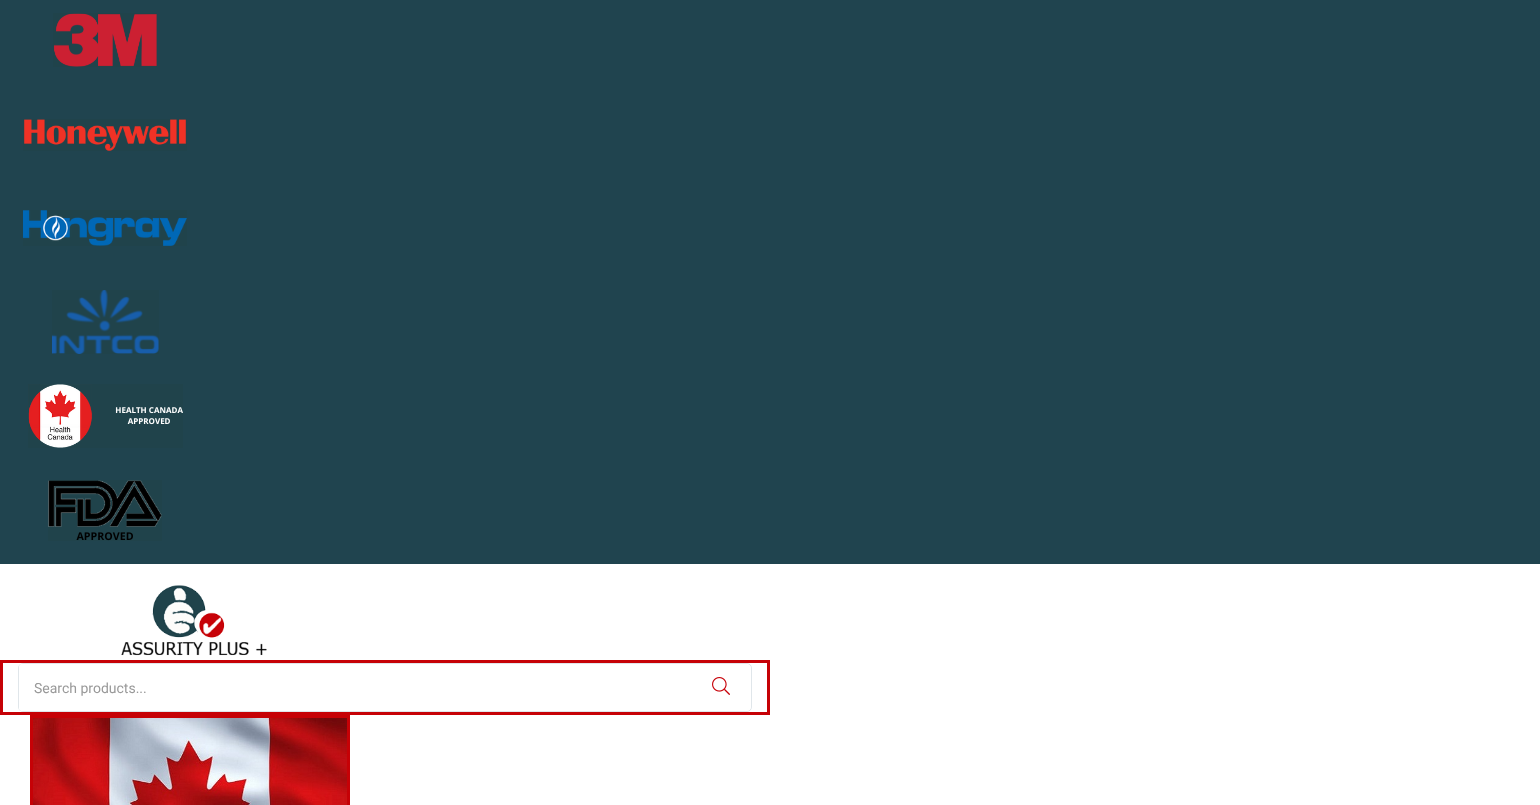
<!DOCTYPE html>
<meta charset="utf-8">
<style>body { margin: 0 } canvas { display: block }</style>
<canvas id="canvas" width="1540" height="805"></canvas>
<script type="module">
  const canvas = document.getElementById("canvas");
  const g = canvas.getContext("2d");
  g.miterLimit = 4;
  g.fontKerning = "normal";
  function drawText(s, x, y, [font, color]) {
    g.font = font;
    g.fillStyle = color;
    g.fillText(s, x, y);
  }
  function fillBox(x, y, w, h, color) {
    g.fillStyle = color;
    g.fillRect(x, y, w, h);
  }
  async function drawPicture(src, x, y, w, h) {
    const img = new Image();
    img.src = src;
    await img.decode();
    g.drawImage(img, x, y, w, h);
  }

  const s1 = ["14px Roboto", "#999999"];

  fillBox(0, 0, 1540, 805, "#FFFFFF");
  fillBox(0, 0, 1540, 564, "#20444F");
  await drawPicture("pic1.png", 53, 13, 104, 54);
  await drawPicture("pic2.png", 23, 119, 164, 32);
  await drawPicture("pic3.png", 23, 210, 164, 36);
  await drawPicture("pic4.png", 52, 290, 107, 64);
  await drawPicture("pic5.png", 28, 384, 155, 64);
  await drawPicture("pic6.png", 48, 480, 114, 61);
  await drawPicture("pic7.png", 121, 585, 146, 71);
  g.strokeStyle = "#C60106";
  g.lineWidth = 3;
  g.strokeRect(1.5, 661.5, 767, 52);
  g.beginPath();
  g.roundRect(18.5, 663.5, 733, 48, 4.5);
  g.strokeStyle = "#E0E6EA";
  g.lineWidth = 1;
  g.stroke();
  g.fillStyle = "#FFFFFF";
  g.beginPath();
  g.roundRect(19, 664, 672, 47, [3, 0, 0, 3]);
  g.fill();
  drawText("Search products...", 34, 693, s1);
  g.fillStyle = "#FFFFFF";
  g.beginPath();
  g.roundRect(691, 664, 60, 47, [0, 5, 5, 0]);
  g.fill();
  await drawPicture("pic8.png", 712, 677, 18, 18);
  g.strokeStyle = "#C60106";
  g.lineWidth = 3;
  g.strokeRect(31.5, 716.5, 317, 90);
  await drawPicture("pic9.png", 33, 718, 314, 87);
</script>
